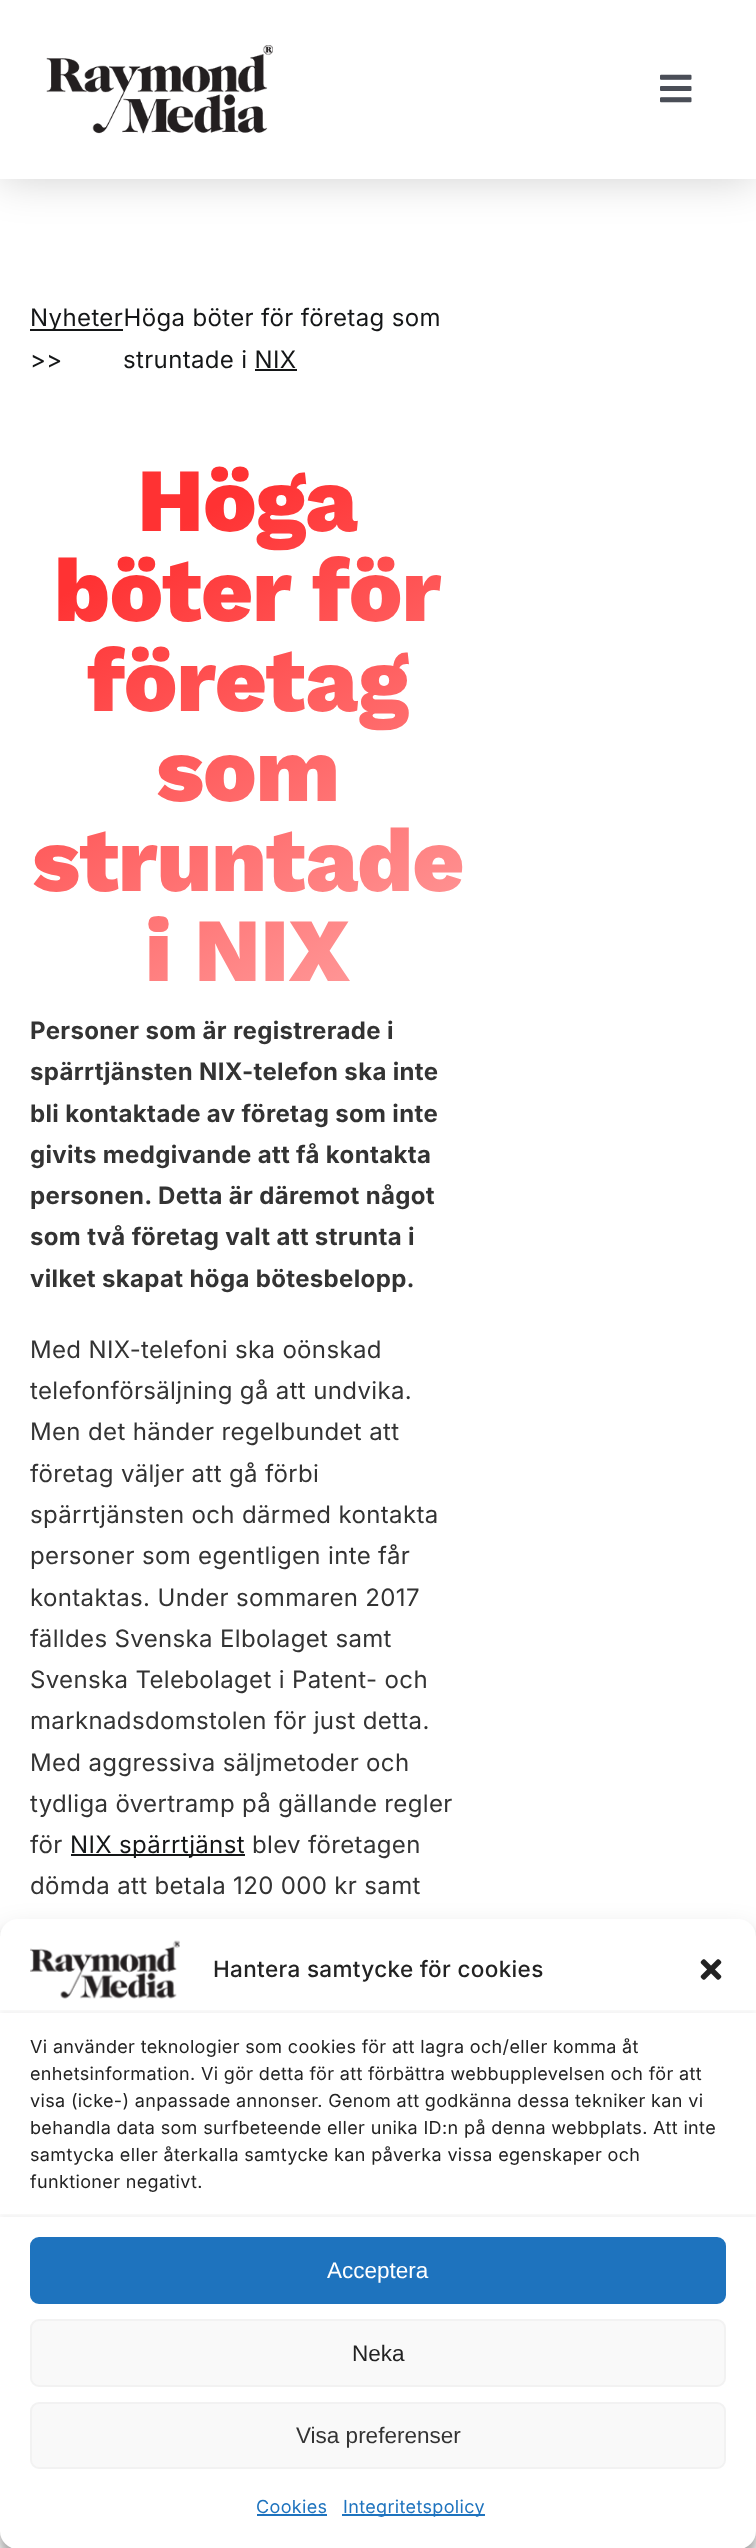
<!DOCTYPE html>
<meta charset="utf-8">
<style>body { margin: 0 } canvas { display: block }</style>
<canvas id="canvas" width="756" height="2548"></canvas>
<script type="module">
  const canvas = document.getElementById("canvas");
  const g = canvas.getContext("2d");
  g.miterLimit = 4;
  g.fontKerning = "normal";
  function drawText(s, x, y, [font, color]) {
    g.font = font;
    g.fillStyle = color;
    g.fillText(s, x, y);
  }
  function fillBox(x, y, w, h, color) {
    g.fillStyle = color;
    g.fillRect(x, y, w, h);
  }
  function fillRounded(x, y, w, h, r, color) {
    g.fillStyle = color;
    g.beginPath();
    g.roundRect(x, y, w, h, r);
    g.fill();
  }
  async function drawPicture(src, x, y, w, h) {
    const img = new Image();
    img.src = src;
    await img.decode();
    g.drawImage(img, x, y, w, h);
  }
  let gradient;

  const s1 = ["24px Inter", "#141617"];
  const s2 = ["bold 24px Inter", "#333333"];
  const s3 = ["24px Inter", "#333333"];
  const s4 = ["500 22.5px Inter", "#222222"];
  const s5 = ["18px Inter", "#222222"];
  const s6 = ["22.5px Liberation Sans", "#FFFFFF"];
  const s7 = ["22.5px Liberation Sans", "#222222"];
  const s8 = ["22.5px Liberation Sans", "#333333"];
  const s9 = ["18px Inter", "#1E73BE"];

  fillBox(0, 0, 756, 2548, "#FFFFFF");
  g.fillStyle = "rgba(0, 0, 0, 0.19)";
  g.filter = "blur(22px)";
  g.beginPath();
  g.rect(0, 0, 756, 179);
  g.fill();
  g.filter = "none";
  fillBox(0, 0, 756, 179, "#FFFFFF");
  await drawPicture("pic1.png", 46, 45, 227, 89);
  await drawPicture("pic2.png", 660, 74, 32, 29);
  fillBox(30, 329, 93, 2, "#141617");
  g.letterSpacing = "0.35px";
  drawText("NyheterHöga böter för företag som", 30, 326, s1);
  drawText(">>", 30, 368, s1);
  drawText("struntade i NIX", 123, 368, s1);
  fillBox(255, 369, 42, 2, "#141617");
  g.letterSpacing = "-1px";
  g.font = "800 90px Work Sans";
  gradient = g.createLinearGradient(76, 429, 418, 1022);
  gradient.addColorStop(0.2, "#FF3233");
  gradient.addColorStop(1, "#FFA3A3");
  g.fillStyle = gradient;
  g.fillText("Höga", 137, 531);
  g.fillText("böter för", 54, 621);
  g.fillText("företag", 87, 711);
  g.fillText("som", 156, 801);
  g.fillText("struntade", 32, 891);
  g.fillText("i NIX", 145, 981);
  g.letterSpacing = "0.35px";
  drawText("Personer som är registrerade i", 30, 1039, s2);
  drawText("spärrtjänsten NIX-telefon ska inte", 30, 1080, s2);
  drawText("bli kontaktade av företag som inte", 30, 1122, s2);
  drawText("givits medgivande att få kontakta", 30, 1163, s2);
  drawText("personen. Detta är däremot något", 30, 1204, s2);
  drawText("som två företag valt att strunta i", 30, 1245, s2);
  drawText("vilket skapat höga bötesbelopp.", 30, 1287, s2);
  drawText("Med NIX-telefoni ska oönskad", 30, 1358, s3);
  drawText("telefonförsäljning gå att undvika.", 30, 1399, s3);
  drawText("Men det händer regelbundet att", 30, 1440, s3);
  drawText("företag väljer att gå förbi", 30, 1482, s3);
  drawText("spärrtjänsten och därmed kontakta", 30, 1523, s3);
  drawText("personer som egentligen inte får", 30, 1564, s3);
  drawText("kontaktas. Under sommaren 2017", 30, 1606, s3);
  drawText("fälldes Svenska Elbolaget samt", 30, 1647, s3);
  drawText("Svenska Telebolaget i Patent- och", 30, 1688, s3);
  drawText("marknadsdomstolen för just detta.", 30, 1729, s3);
  drawText("Med aggressiva säljmetoder och", 30, 1771, s3);
  drawText("tydliga övertramp på gällande regler", 30, 1812, s3);
  drawText("för", 30, 1853, s3);
  fillBox(71, 1854, 174, 2, "#141617");
  drawText("NIX spärrtjänst", 70, 1853, s1);
  drawText("blev företagen", 252, 1853, s3);
  drawText("dömda att betala 120 000 kr samt", 30, 1894, s3);
  g.fillStyle = "rgba(0, 0, 0, 0.23)";
  g.filter = "blur(4.5px)";
  g.beginPath();
  g.roundRect(0, 1928, 756, 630, 18);
  g.fill();
  g.filter = "none";
  g.fillStyle = "rgba(0, 0, 0, 0.19)";
  g.filter = "blur(15px)";
  g.beginPath();
  g.roundRect(0, 1934, 756, 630, 18);
  g.fill();
  g.filter = "none";
  fillRounded(0, 1919, 756, 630, 18, "#FFFFFF");
  await drawPicture("pic3.png", 30, 1940, 150, 59);
  drawText("Hantera samtycke för cookies", 213, 1977, s4);
  await drawPicture("pic4.png", 700, 1959, 22, 21);
  g.save();
  g.beginPath();
  g.rect(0, 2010, 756, 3);
  g.clip();
  g.fillStyle = "rgba(0, 0, 0, 0.05)";
  g.filter = "blur(2px)";
  g.beginPath();
  g.rect(0, 2010, 756, 5);
  g.fill();
  g.filter = "none";
  g.restore();
  drawText("Vi använder teknologier som cookies för att lagra och/eller komma åt", 30, 2053, s5);
  drawText("enhetsinformation. Vi gör detta för att förbättra webbupplevelsen och för att", 30, 2080, s5);
  drawText("visa (icke-) anpassade annonser. Genom att godkänna dessa tekniker kan vi", 30, 2107, s5);
  drawText("behandla data som surfbeteende eller unika ID:n på denna webbplats. Att inte", 30, 2134, s5);
  drawText("samtycka eller återkalla samtycke kan påverka vissa egenskaper och", 30, 2161, s5);
  drawText("funktioner negativt.", 30, 2188, s5);
  g.save();
  g.beginPath();
  g.rect(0, 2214, 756, 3);
  g.clip();
  g.fillStyle = "rgba(0, 0, 0, 0.05)";
  g.filter = "blur(2px)";
  g.beginPath();
  g.rect(0, 2214, 756, 5);
  g.fill();
  g.filter = "none";
  g.restore();
  g.fillStyle = "#1E73BE";
  g.beginPath();
  g.roundRect(31, 2238, 694, 65, 8);
  g.fill();
  g.strokeStyle = "#1E73BE";
  g.lineWidth = 2;
  g.stroke();
  g.letterSpacing = "0px";
  drawText("Acceptera", 327, 2278, s6);
  g.fillStyle = "#F9F9F9";
  g.beginPath();
  g.roundRect(31, 2320, 694, 66, 8);
  g.fill();
  g.strokeStyle = "#F2F2F2";
  g.stroke();
  drawText("Neka", 352, 2361, s7);
  g.fillStyle = "#F9F9F9";
  g.beginPath();
  g.roundRect(31, 2403, 694, 65, 8);
  g.fill();
  g.stroke();
  drawText("Visa preferenser", 296, 2443, s8);
  g.letterSpacing = "0.35px";
  drawText("Cookies", 256, 2513, s9);
  fillBox(257, 2514, 70, 2, "#1E73BE");
  fillBox(342, 2514, 143, 2, "#1E73BE");
  drawText("Integritetspolicy", 343, 2513, s9);
</script>
